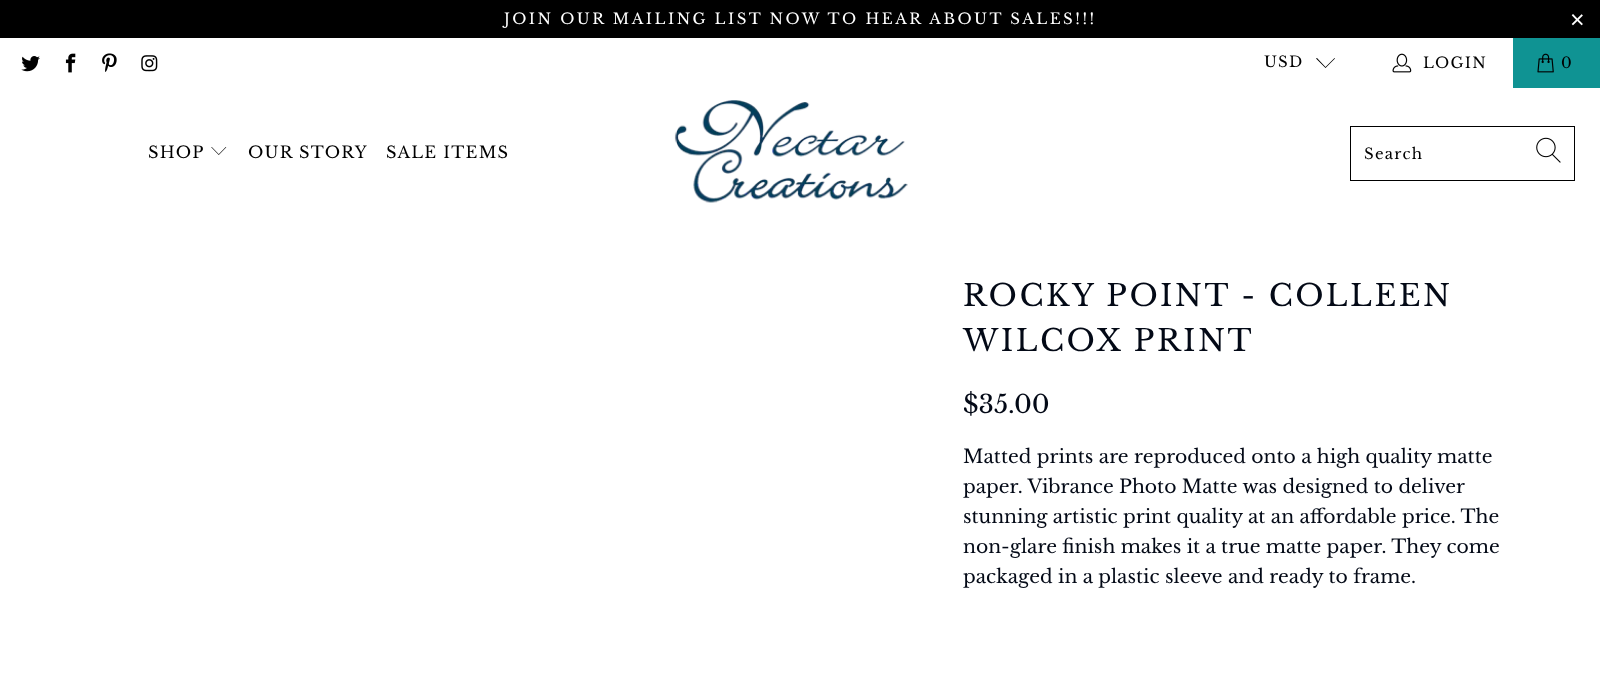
<!DOCTYPE html>
<meta charset="utf-8">
<style>body { margin: 0 } canvas { display: block }</style>
<canvas id="canvas" width="1600" height="686"></canvas>
<script type="module">
  const canvas = document.getElementById("canvas");
  const g = canvas.getContext("2d");
  g.miterLimit = 4;
  g.fontKerning = "normal";
  function drawText(s, x, y, [font, color]) {
    g.font = font;
    g.fillStyle = color;
    g.fillText(s, x, y);
  }
  function fillBox(x, y, w, h, color) {
    g.fillStyle = color;
    g.fillRect(x, y, w, h);
  }
  async function drawPicture(src, x, y, w, h) {
    const img = new Image();
    img.src = src;
    await img.decode();
    g.drawImage(img, x, y, w, h);
  }

  const s1 = ["15px Libre Baskerville", "#FFFFFF"];
  const s2 = ["25px Liberation Sans", "#FFFFFF"];
  const s3 = ["15px Libre Baskerville", "#000000"];
  const s4 = ["16.25px Libre Baskerville", "#000000"];
  const s5 = ["30px Libre Baskerville", "#030916"];
  const s6 = ["25px Libre Baskerville", "#030916"];
  const s7 = ["18.75px Libre Baskerville", "#030916"];

  fillBox(0, 0, 1600, 686, "#FFFFFF");
  fillBox(0, 0, 1600, 38, "#000000");
  g.letterSpacing = "2.5px";
  drawText("JOIN OUR MAILING LIST NOW TO HEAR ABOUT SALES!!!", 504, 24, s1);
  drawText("×", 1570, 28, s2);
  await drawPicture("pic1.png", 21, 56, 19, 16);
  await drawPicture("pic2.png", 65, 53, 11, 20);
  await drawPicture("pic3.png", 102, 53, 15, 19);
  await drawPicture("pic4.png", 141, 55, 17, 17);
  g.letterSpacing = "1.25px";
  drawText("USD", 1264, 67, s3);
  g.beginPath();
  g.moveTo(1325.5, 68);
  g.lineTo(1316, 58.5);
  g.lineTo(1317, 58);
  g.lineTo(1325.5, 67);
  g.lineTo(1334.5, 58);
  g.lineTo(1335, 58.5);
  g.closePath();
  g.fill();
  await drawPicture("pic5.png", 1392, 53, 20, 20);
  drawText("LOGIN", 1423, 68, s3);
  fillBox(1513, 38, 87, 50, "#0F9393");
  await drawPicture("pic6.png", 1537, 53, 17, 20);
  drawText("0", 1561, 68, s3);
  drawText("SHOP", 148, 158, s4);
  await drawPicture("pic7.png", 211, 147, 16, 8);
  drawText("OUR STORY", 248, 158, s4);
  drawText("SALE ITEMS", 386, 158, s4);
  await drawPicture("pic8.png", 674, 100, 234, 103);
  g.strokeStyle = "#000000";
  g.strokeRect(1350.5, 126.5, 224, 54);
  drawText("Search", 1364, 159, s3);
  await drawPicture("pic9.png", 1536, 137, 25, 26);
  g.letterSpacing = "2.5px";
  drawText("ROCKY POINT - COLLEEN", 963, 306, s5);
  drawText("WILCOX PRINT", 963, 351, s5);
  g.letterSpacing = "0px";
  drawText("$35.00", 963, 413, s6);
  drawText("Matted prints are reproduced onto a high quality matte", 963, 463, s7);
  drawText("paper. Vibrance Photo Matte was designed to deliver", 963, 493, s7);
  drawText("stunning artistic print quality at an affordable price. The", 963, 523, s7);
  drawText("non-glare finish makes it a true matte paper. They come", 963, 553, s7);
  drawText("packaged in a plastic sleeve and ready to frame.", 963, 583, s7);
</script>
